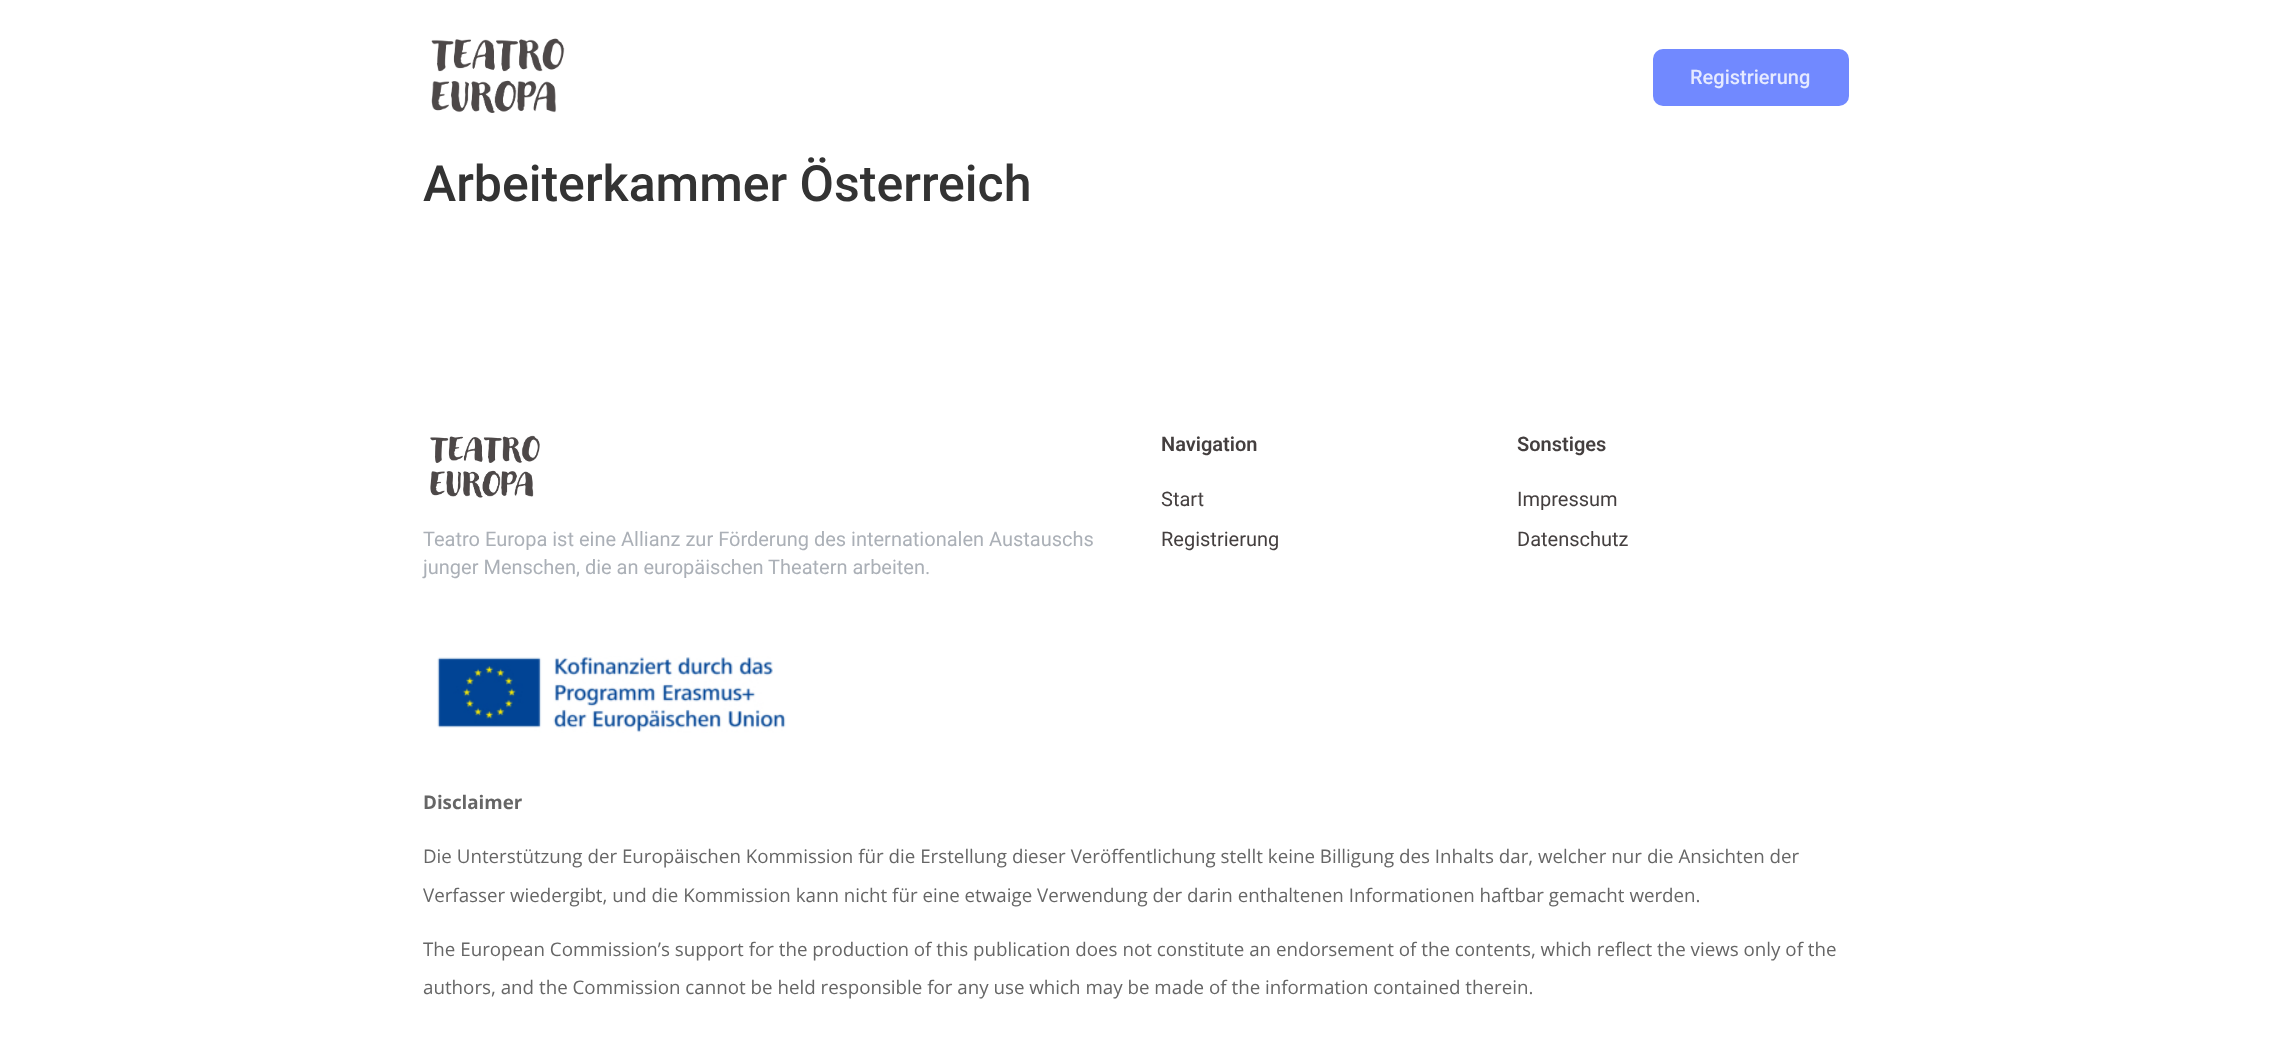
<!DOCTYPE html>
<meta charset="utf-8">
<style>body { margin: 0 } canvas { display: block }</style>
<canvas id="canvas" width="2271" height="1058"></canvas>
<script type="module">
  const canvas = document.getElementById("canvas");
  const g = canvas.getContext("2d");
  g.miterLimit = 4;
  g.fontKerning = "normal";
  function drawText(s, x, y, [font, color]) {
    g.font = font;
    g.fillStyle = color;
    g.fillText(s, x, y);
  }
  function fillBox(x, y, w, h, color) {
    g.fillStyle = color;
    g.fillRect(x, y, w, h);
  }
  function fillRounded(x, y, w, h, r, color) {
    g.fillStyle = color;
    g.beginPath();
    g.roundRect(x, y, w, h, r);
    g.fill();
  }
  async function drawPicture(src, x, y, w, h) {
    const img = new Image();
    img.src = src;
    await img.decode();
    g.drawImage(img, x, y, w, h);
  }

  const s1 = ["500 20px Roboto", "#E6EAFF"];
  const s2 = ["500 50px Roboto", "#333333"];
  const s3 = ["20px Roboto", "#ABB0B7"];
  const s4 = ["600 20px Roboto", "#443F3F"];
  const s5 = ["20px Roboto", "#443F3F"];
  const s6 = ["bold 18.75px Open Sans", "#666666"];
  const s7 = ["18.75px Open Sans", "#666666"];

  fillBox(0, 0, 2271, 1058, "#FFFFFF");
  await drawPicture("pic1.png", 431, 38, 134, 75);
  fillRounded(1653, 49, 196, 57, 10, "#7189FF");
  drawText("Registrierung", 1690, 84, s1);
  drawText("Arbeiterkammer Österreich", 423, 201, s2);
  await drawPicture("pic2.png", 430, 435, 110, 63);
  drawText("Teatro Europa ist eine Allianz zur Förderung des internationalen Austauschs", 423, 546, s3);
  drawText("junger Menschen, die an europäischen Theatern arbeiten.", 423, 574, s3);
  drawText("Navigation", 1161, 451, s4);
  drawText("Start", 1161, 506, s5);
  drawText("Registrierung", 1161, 546, s5);
  drawText("Sonstiges", 1517, 451, s4);
  drawText("Impressum", 1517, 506, s5);
  drawText("Datenschutz", 1517, 546, s5);
  await drawPicture("pic3.png", 437, 656, 349, 77);
  drawText("Disclaimer", 423, 809, s6);
  drawText("Die Unterstützung der Europäischen Kommission für die Erstellung dieser Veröffentlichung stellt keine Billigung des Inhalts dar, welcher nur die Ansichten der", 423, 863, s7);
  drawText("Verfasser wiedergibt, und die Kommission kann nicht für eine etwaige Verwendung der darin enthaltenen Informationen haftbar gemacht werden.", 423, 902, s7);
  drawText("The European Commission’s support for the production of this publication does not constitute an endorsement of the contents, which reflect the views only of the", 423, 956, s7);
  drawText("authors, and the Commission cannot be held responsible for any use which may be made of the information contained therein.", 423, 994, s7);
</script>
